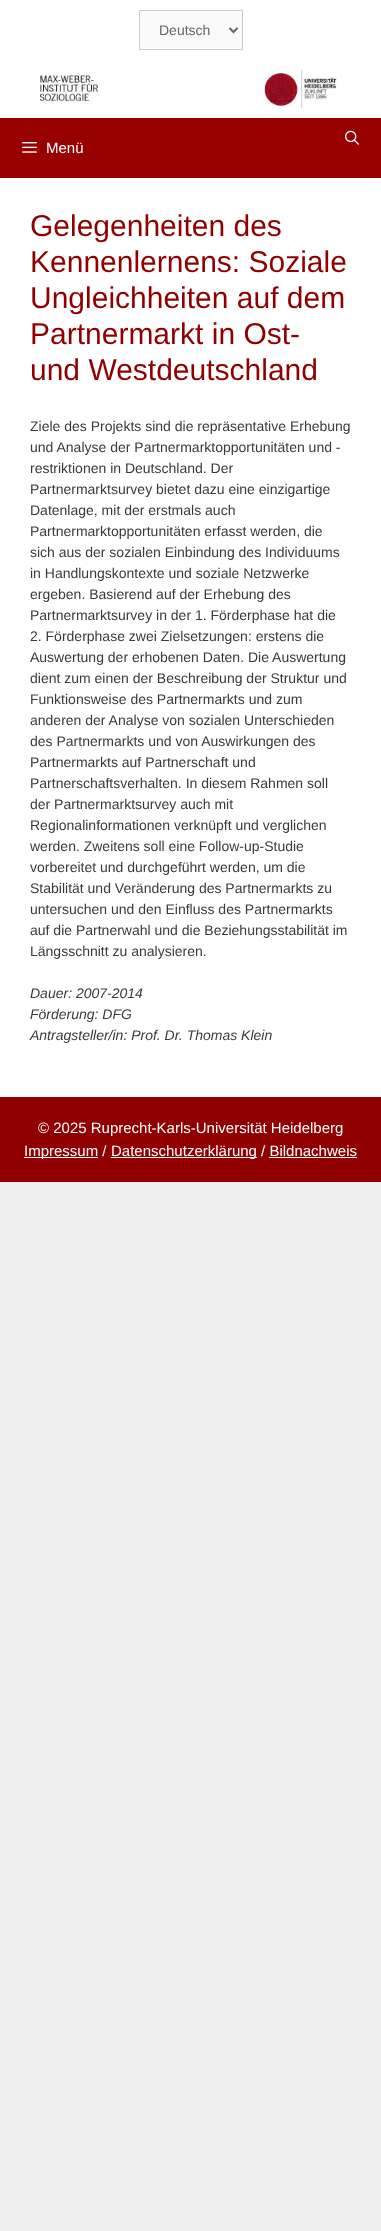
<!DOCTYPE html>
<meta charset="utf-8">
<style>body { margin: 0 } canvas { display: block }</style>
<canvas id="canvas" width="381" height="2231"></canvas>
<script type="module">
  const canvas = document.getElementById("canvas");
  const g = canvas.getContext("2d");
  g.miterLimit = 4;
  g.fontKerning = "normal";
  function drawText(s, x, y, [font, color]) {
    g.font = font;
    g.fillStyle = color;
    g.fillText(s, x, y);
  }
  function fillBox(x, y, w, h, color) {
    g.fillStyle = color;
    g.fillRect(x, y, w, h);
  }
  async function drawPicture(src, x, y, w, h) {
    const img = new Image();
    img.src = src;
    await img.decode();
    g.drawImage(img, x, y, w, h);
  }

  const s1 = ["14px Liberation Sans", "#666666"];
  const s2 = ["15px Liberation Sans", "#FFFFFF"];
  const s3 = ["30px Liberation Sans", "#900000"];
  const s4 = ["14px Liberation Sans", "#3A3A3A"];
  const s5 = ["italic 14px Liberation Sans", "#3A3A3A"];

  fillBox(0, 0, 381, 2231, "#EFEFEF");
  fillBox(0, 0, 381, 118, "#FFFFFF");
  g.fillStyle = "#FAFAFA";
  g.beginPath();
  g.rect(139.5, 10.5, 103, 39);
  g.fill();
  g.strokeStyle = "#CCCCCC";
  g.stroke();
  g.beginPath();
  g.moveTo(229.5, 28);
  g.lineTo(233.5, 32);
  g.lineTo(237.5, 28);
  g.strokeStyle = "#666666";
  g.lineWidth = 2;
  g.stroke();
  drawText("Deutsch", 159, 35, s1);
  await drawPicture("pic1.png", 40, 70, 297, 38);
  fillBox(0, 118, 381, 60, "#990000");
  await drawPicture("pic2.png", 345, 130, 14, 15);
  await drawPicture("pic3.png", 22, 142, 15, 11);
  drawText("Menü", 46, 153, s2);
  fillBox(0, 178, 381, 919, "#FFFFFF");
  drawText("Gelegenheiten des", 30, 236, s3);
  drawText("Kennenlernens: Soziale", 30, 272, s3);
  drawText("Ungleichheiten auf dem", 30, 308, s3);
  drawText("Partnermarkt in Ost-", 30, 344, s3);
  drawText("und Westdeutschland", 30, 380, s3);
  drawText("Ziele des Projekts sind die repräsentative Erhebung", 30, 431, s4);
  drawText("und Analyse der Partnermarktopportunitäten und -", 30, 452, s4);
  drawText("restriktionen in Deutschland. Der", 30, 473, s4);
  drawText("Partnermarktsurvey bietet dazu eine einzigartige", 30, 494, s4);
  drawText("Datenlage, mit der erstmals auch", 30, 515, s4);
  drawText("Partnermarktopportunitäten erfasst werden, die", 30, 536, s4);
  drawText("sich aus der sozialen Einbindung des Individuums", 30, 557, s4);
  drawText("in Handlungskontexte und soziale Netzwerke", 30, 578, s4);
  drawText("ergeben. Basierend auf der Erhebung des", 30, 599, s4);
  drawText("Partnermarktsurvey in der 1. Förderphase hat die", 30, 620, s4);
  drawText("2. Förderphase zwei Zielsetzungen: erstens die", 30, 641, s4);
  drawText("Auswertung der erhobenen Daten. Die Auswertung", 30, 662, s4);
  drawText("dient zum einen der Beschreibung der Struktur und", 30, 683, s4);
  drawText("Funktionsweise des Partnermarkts und zum", 30, 704, s4);
  drawText("anderen der Analyse von sozialen Unterschieden", 30, 725, s4);
  drawText("des Partnermarkts und von Auswirkungen des", 30, 746, s4);
  drawText("Partnermarkts auf Partnerschaft und", 30, 767, s4);
  drawText("Partnerschaftsverhalten. In diesem Rahmen soll", 30, 788, s4);
  drawText("der Partnermarktsurvey auch mit", 30, 809, s4);
  drawText("Regionalinformationen verknüpft und verglichen", 30, 830, s4);
  drawText("werden. Zweitens soll eine Follow-up-Studie", 30, 851, s4);
  drawText("vorbereitet und durchgeführt werden, um die", 30, 872, s4);
  drawText("Stabilität und Veränderung des Partnermarkts zu", 30, 893, s4);
  drawText("untersuchen und den Einfluss des Partnermarkts", 30, 914, s4);
  drawText("auf die Partnerwahl und die Beziehungsstabilität im", 30, 935, s4);
  drawText("Längsschnitt zu analysieren.", 30, 956, s4);
  drawText("Dauer: 2007-2014", 30, 998, s5);
  drawText("Förderung: DFG", 30, 1019, s5);
  drawText("Antragsteller/in: Prof. Dr. Thomas Klein", 30, 1040, s5);
  fillBox(0, 1097, 381, 85, "#900000");
  drawText("© 2025 Ruprecht-Karls-Universität Heidelberg", 38, 1133, s2);
  fillBox(24, 1157, 74, 1, "#FFFFFF");
  drawText("Impressum /", 24, 1156, s2);
  fillBox(111, 1157, 146, 1, "#FFFFFF");
  drawText("Datenschutzerklärung / Bildnachweis", 111, 1156, s2);
  fillBox(269, 1157, 88, 1, "#FFFFFF");
</script>
